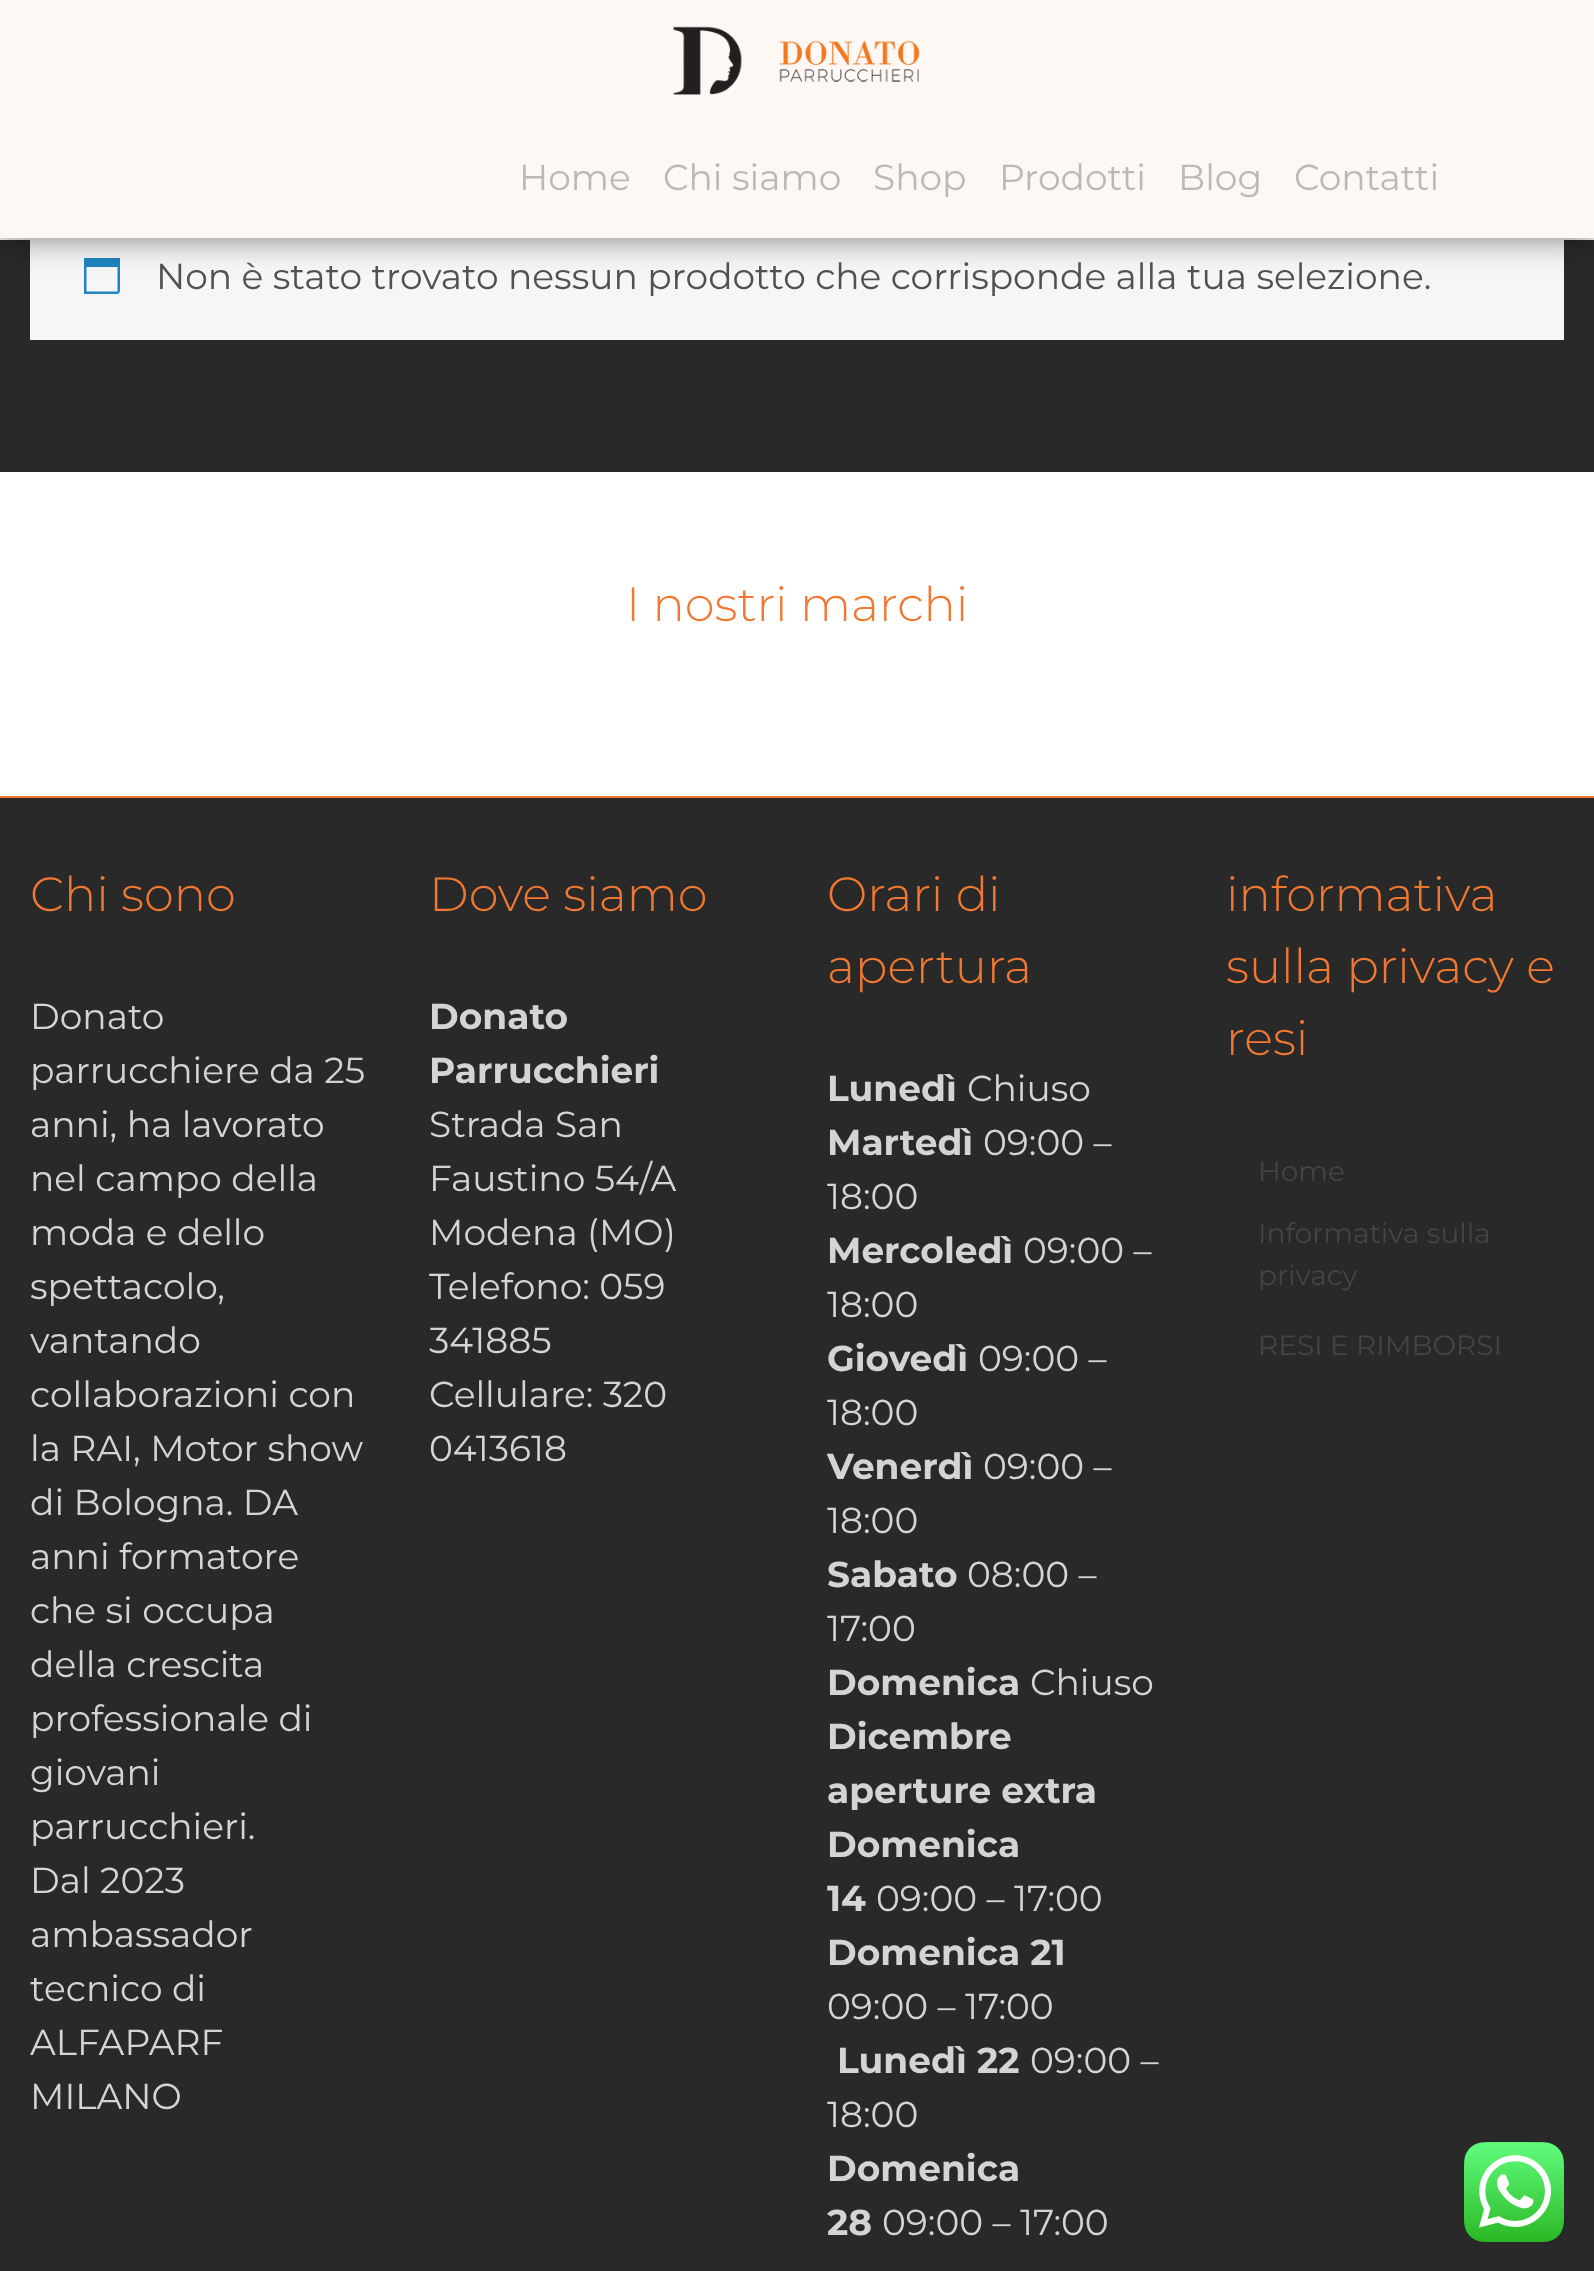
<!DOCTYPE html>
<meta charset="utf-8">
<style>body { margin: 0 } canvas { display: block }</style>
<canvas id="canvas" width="1594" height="2271"></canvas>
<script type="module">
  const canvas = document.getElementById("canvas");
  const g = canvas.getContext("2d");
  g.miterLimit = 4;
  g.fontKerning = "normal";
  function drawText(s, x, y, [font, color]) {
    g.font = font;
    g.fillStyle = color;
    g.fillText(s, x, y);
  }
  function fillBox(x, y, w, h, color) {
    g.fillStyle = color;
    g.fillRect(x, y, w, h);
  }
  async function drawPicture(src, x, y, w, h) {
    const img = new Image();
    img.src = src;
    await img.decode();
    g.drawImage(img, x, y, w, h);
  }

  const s1 = ["36px Montserrat", "#BBB9B8"];
  const s2 = ["36px Montserrat", "#515151"];
  const s3 = ["300 48px Montserrat", "#F17830"];
  const s4 = ["36px Montserrat", "#D4D4D4"];
  const s5 = ["bold 36px Montserrat", "#D4D4D4"];
  const s6 = ["28px Montserrat", "#444444"];

  fillBox(0, 0, 1594, 2271, "#FFFFFF");
  fillBox(0, 238, 1594, 2, "#F5F5F5");
  fillBox(0, 240, 1594, 232, "#292929");
  fillBox(30, 240, 1534, 100, "#F6F5F8");
  g.fillStyle = "#1E85BE";
  g.beginPath();
  g.moveTo(117.5, 267);
  g.lineTo(86.5, 267);
  g.lineTo(86.5, 291.5);
  g.lineTo(117.5, 291.5);
  g.closePath();
  g.moveTo(120, 258);
  g.lineTo(120, 286);
  g.bezierCurveTo(120, 294.5, 120.5, 294, 112, 294);
  g.lineTo(84, 294);
  g.lineTo(84, 258);
  g.closePath();
  g.fill();
  g.fillStyle = "rgba(0, 0, 0, 0.5)";
  g.filter = "blur(16px)";
  g.beginPath();
  g.rect(0, 0, 1594, 238);
  g.fill();
  g.filter = "none";
  fillBox(0, 0, 1594, 238, "#FEF8F5");
  await drawPicture("pic1.png", 673, 26, 69, 69);
  await drawPicture("pic2.png", 779, 40, 141, 42);
  drawText("Home", 519, 190, s1);
  drawText("Chi siamo", 663, 190, s1);
  drawText("Shop", 873, 190, s1);
  drawText("Prodotti", 999, 190, s1);
  drawText("Blog", 1178, 190, s1);
  drawText("Contatti", 1294, 190, s1);
  drawText("Non è stato trovato nessun prodotto che corrisponde alla tua selezione.", 156, 289, s2);
  drawText("I nostri marchi", 626, 621, s3);
  fillBox(0, 798, 1594, 1473, "#292929");
  fillBox(0, 796, 1594, 2, "#F17830");
  drawText("Chi sono", 30, 911, s3);
  drawText("Donato", 30, 1029, s4);
  drawText("parrucchiere da 25", 30, 1083, s4);
  drawText("anni, ha lavorato", 30, 1137, s4);
  drawText("nel campo della", 30, 1191, s4);
  drawText("moda e dello", 30, 1245, s4);
  drawText("spettacolo,", 30, 1299, s4);
  drawText("vantando", 30, 1353, s4);
  drawText("collaborazioni con", 30, 1407, s4);
  drawText("la RAI, Motor show", 30, 1461, s4);
  drawText("di Bologna. DA", 30, 1515, s4);
  drawText("anni formatore", 30, 1569, s4);
  drawText("che si occupa", 30, 1623, s4);
  drawText("della crescita", 30, 1677, s4);
  drawText("professionale di", 30, 1731, s4);
  drawText("giovani", 30, 1785, s4);
  drawText("parrucchieri.", 30, 1839, s4);
  drawText("Dal 2023", 30, 1893, s4);
  drawText("ambassador", 30, 1947, s4);
  drawText("tecnico di", 30, 2001, s4);
  drawText("ALFAPARF", 30, 2055, s4);
  drawText("MILANO", 30, 2109, s4);
  drawText("Dove siamo", 429, 911, s3);
  drawText("Donato", 429, 1029, s5);
  drawText("Parrucchieri", 429, 1083, s5);
  drawText("Strada San", 429, 1137, s4);
  drawText("Faustino 54/A", 429, 1191, s4);
  drawText("Modena (MO)", 429, 1245, s4);
  drawText("Telefono: 059", 429, 1299, s4);
  drawText("341885", 429, 1353, s4);
  drawText("Cellulare: 320", 429, 1407, s4);
  drawText("0413618", 429, 1461, s4);
  drawText("Orari di", 827, 911, s3);
  drawText("apertura", 827, 983, s3);
  drawText("Lunedì", 827, 1101, s5);
  drawText("Chiuso", 967, 1101, s4);
  drawText("Martedì", 827, 1155, s5);
  drawText("09:00 –", 983, 1155, s4);
  drawText("18:00", 827, 1209, s4);
  drawText("Mercoledì", 827, 1263, s5);
  drawText("09:00 –", 1023, 1263, s4);
  drawText("18:00", 827, 1317, s4);
  drawText("Giovedì", 827, 1371, s5);
  drawText("09:00 –", 978, 1371, s4);
  drawText("18:00", 827, 1425, s4);
  drawText("Venerdì", 827, 1479, s5);
  drawText("09:00 –", 983, 1479, s4);
  drawText("18:00", 827, 1533, s4);
  drawText("Sabato", 827, 1587, s5);
  drawText("08:00 –", 967, 1587, s4);
  drawText("17:00", 827, 1641, s4);
  drawText("Domenica", 827, 1695, s5);
  drawText("Chiuso", 1030, 1695, s4);
  drawText("Dicembre", 827, 1749, s5);
  drawText("aperture extra", 827, 1803, s5);
  drawText("Domenica", 827, 1857, s5);
  drawText("14", 827, 1911, s5);
  drawText("09:00 – 17:00", 876, 1911, s4);
  drawText("Domenica 21", 827, 1965, s5);
  drawText("09:00 – 17:00", 827, 2019, s4);
  drawText("Lunedì 22", 837, 2073, s5);
  drawText("09:00 –", 1030, 2073, s4);
  drawText("18:00", 827, 2127, s4);
  drawText("Domenica", 827, 2181, s5);
  drawText("28", 827, 2235, s5);
  drawText("09:00 – 17:00", 882, 2235, s4);
  drawText("informativa", 1226, 911, s3);
  drawText("sulla privacy e", 1226, 983, s3);
  drawText("resi", 1226, 1055, s3);
  drawText("Home", 1258, 1181, s6);
  drawText("Informativa sulla", 1258, 1243, s6);
  drawText("privacy", 1258, 1285, s6);
  drawText("RESI E RIMBORSI", 1258, 1355, s6);
  await drawPicture("pic3.png", 1464, 2142, 100, 100);
</script>
